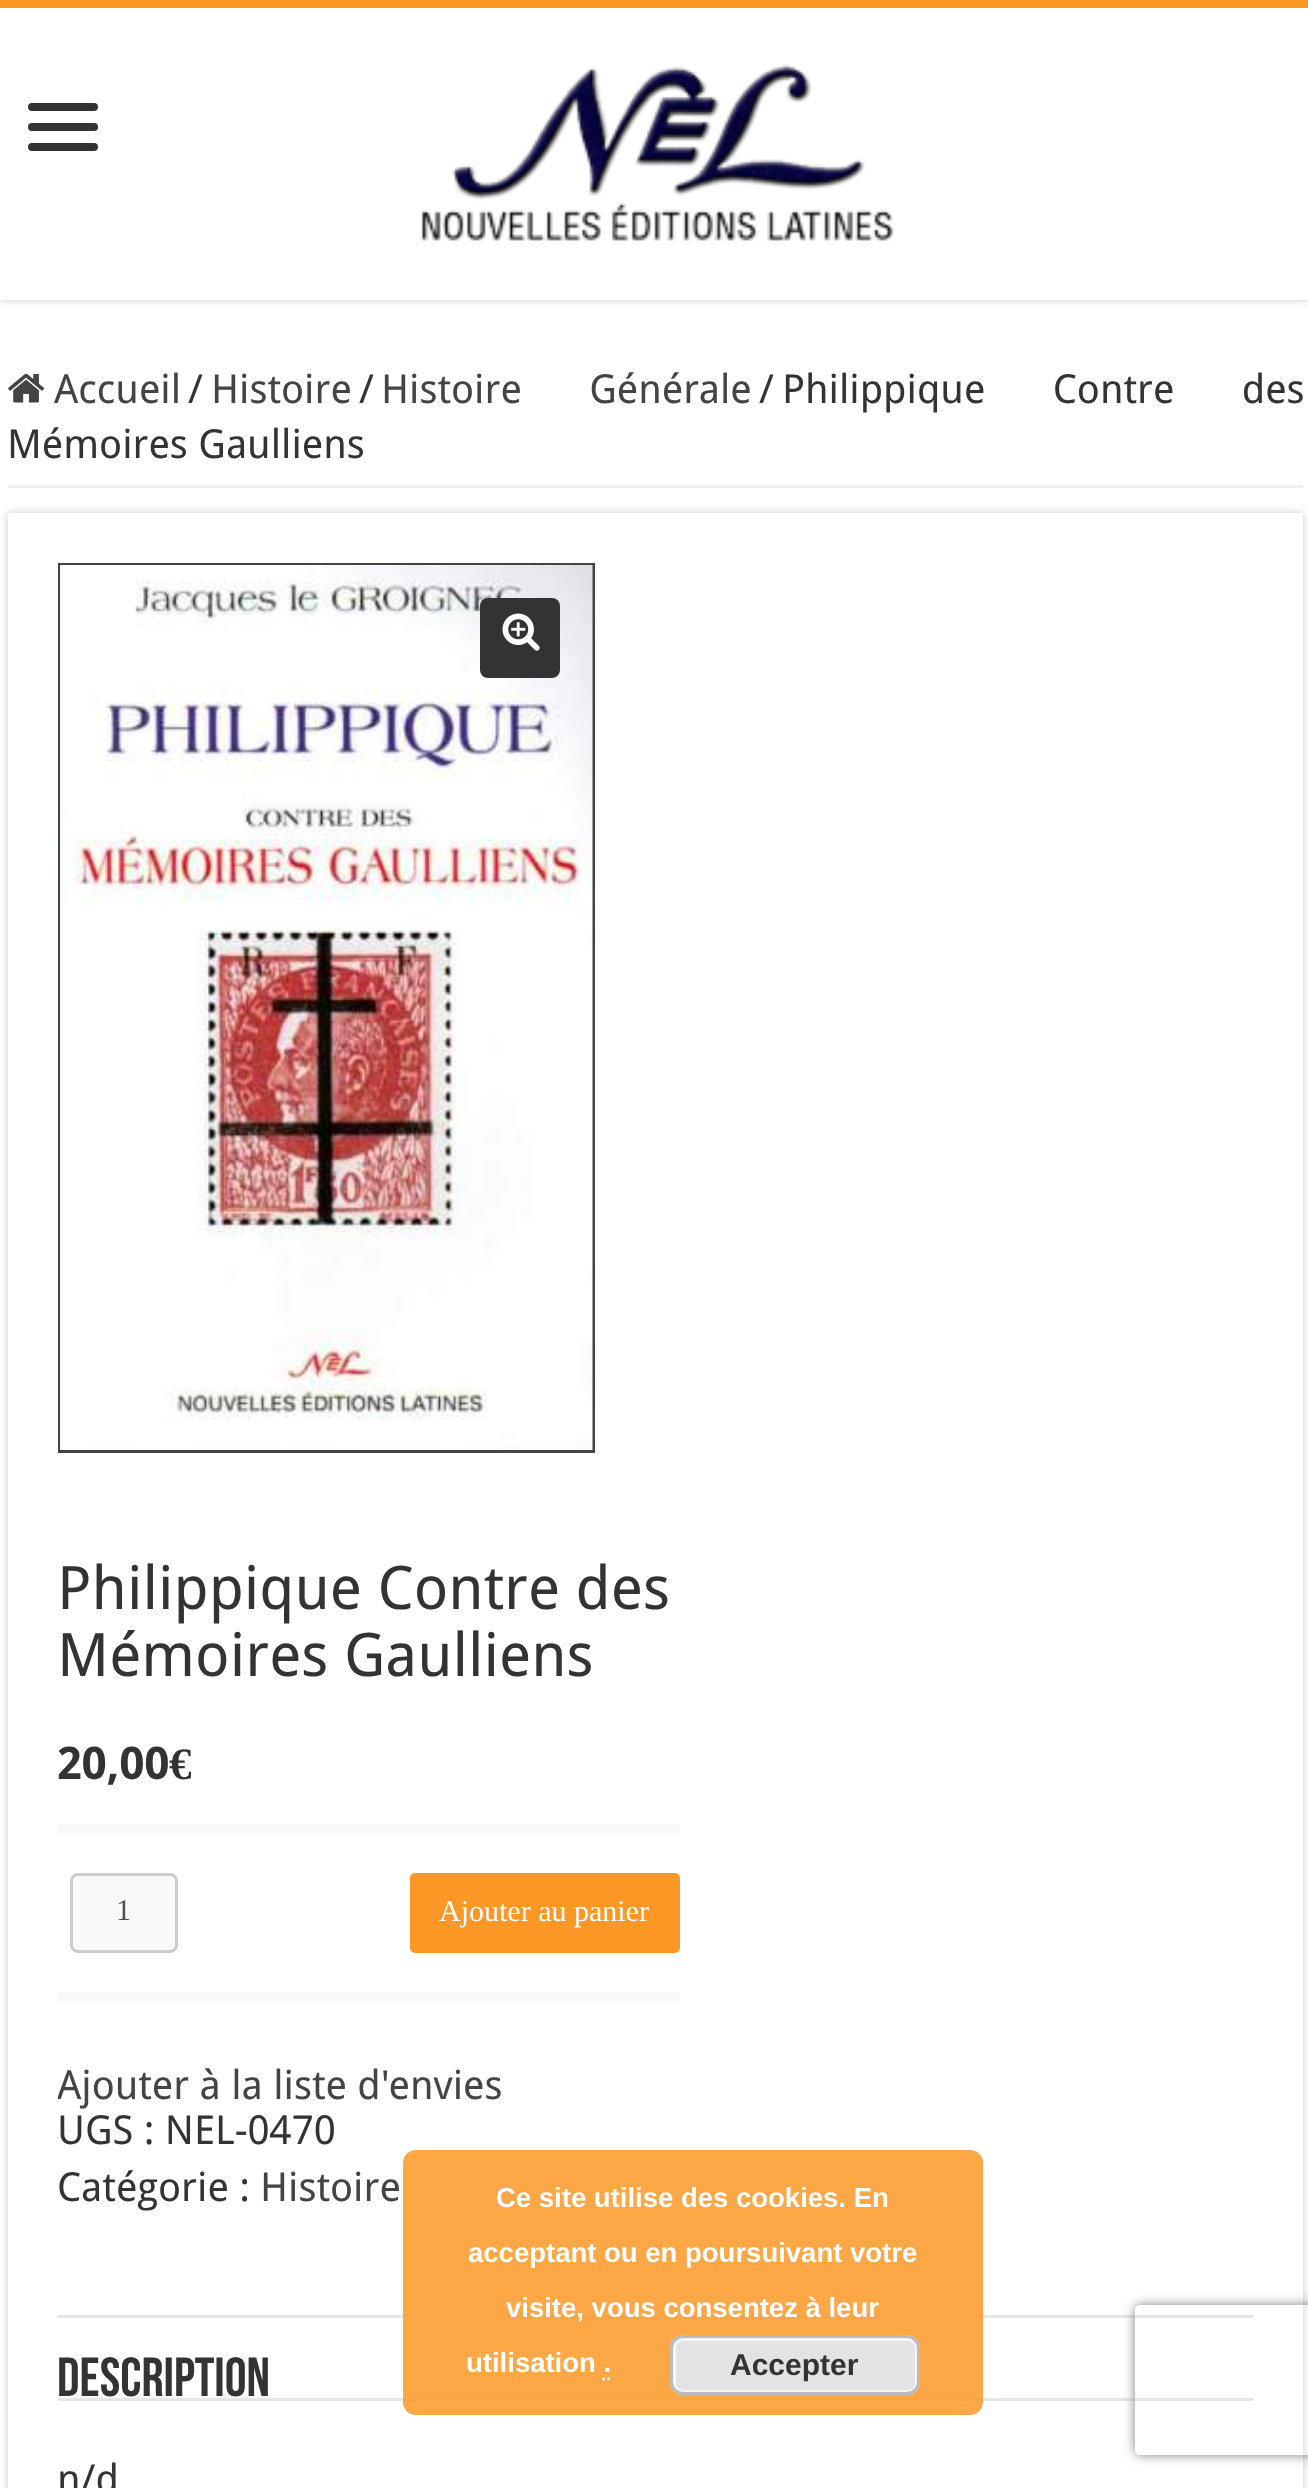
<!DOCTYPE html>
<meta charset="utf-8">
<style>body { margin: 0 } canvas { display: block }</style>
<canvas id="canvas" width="1308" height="2488"></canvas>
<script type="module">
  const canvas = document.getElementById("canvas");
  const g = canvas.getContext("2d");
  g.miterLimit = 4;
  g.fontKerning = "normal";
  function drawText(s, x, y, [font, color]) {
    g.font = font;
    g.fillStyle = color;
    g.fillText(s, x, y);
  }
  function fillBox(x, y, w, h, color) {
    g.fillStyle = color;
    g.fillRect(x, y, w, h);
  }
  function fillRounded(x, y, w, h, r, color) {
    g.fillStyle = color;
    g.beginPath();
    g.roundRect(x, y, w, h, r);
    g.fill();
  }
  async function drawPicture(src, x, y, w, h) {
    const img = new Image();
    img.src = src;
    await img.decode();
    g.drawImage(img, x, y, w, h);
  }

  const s1 = ["40px Droid Sans", "#444444"];
  const s2 = ["40px Droid Sans", "#333333"];
  const s3 = ["60px Droid Sans", "#333333"];
  const s4 = ["bold 45px Droid Sans", "#333333"];
  const s5 = ["bold 45px Liberation Serif", "#333333"];
  const s6 = ["30px Liberation Serif", "#515151"];
  const s7 = ["30px Liberation Serif", "#FFFFFF"];
  const s8 = ["bold 55px Bebas Neue", "#333333"];
  const s9 = ["bold 27.5px Liberation Sans", "#FFFFFF"];
  const s10 = ["bold 30px Liberation Sans", "#333333"];

  fillBox(0, 0, 1308, 2488, "#FFFFFF");
  g.save();
  g.beginPath();
  g.rect(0, 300, 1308, 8);
  g.clip();
  g.fillStyle = "#CACACA";
  g.filter = "blur(4px)";
  g.beginPath();
  g.rect(0, 0, 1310, 300);
  g.fill();
  g.filter = "none";
  g.restore();
  fillBox(0, 0, 1308, 8, "#FD9827");
  fillRounded(28, 103, 70, 8, 4, "#333333");
  fillRounded(28, 123, 70, 8, 4, "#333333");
  fillRounded(28, 143, 70, 8, 4, "#333333");
  await drawPicture("pic1.png", 420, 64, 474, 177);
  fillBox(8, 485, 1295, 3, "#EEEEEE");
  await drawPicture("pic2.png", 8, 373, 36, 30);
  drawText("Accueil", 54, 403, s1);
  drawText("/", 188, 403, s2);
  drawText("Histoire", 211, 403, s1);
  drawText("/", 359, 403, s2);
  g.wordSpacing = "57px";
  drawText("Histoire Générale", 381, 403, s1);
  g.wordSpacing = "0px";
  drawText("/", 759, 403, s2);
  g.wordSpacing = "57px";
  drawText("Philippique Contre des", 782, 403, s2);
  g.wordSpacing = "0px";
  drawText("Mémoires Gaulliens", 7, 458, s2);
  g.fillStyle = "#CACACA";
  g.filter = "blur(4px)";
  g.beginPath();
  g.rect(8, 513, 1295, 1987);
  g.fill();
  g.filter = "none";
  fillBox(8, 513, 1295, 1975, "#FFFFFF");
  g.strokeStyle = "#444444";
  g.lineWidth = 3;
  g.strokeRect(59.5, 564.5, 534, 887);
  await drawPicture("pic3.png", 60, 565, 533, 885);
  fillRounded(480, 598, 80, 80, 8, "#333333");
  await drawPicture("pic4.png", 502, 613, 38, 38);
  drawText("Philippique Contre des", 57, 1609, s3);
  drawText("Mémoires Gaulliens", 57, 1676, s3);
  drawText("20,00", 57, 1779, s4);
  drawText("€", 169, 1779, s5);
  fillBox(58, 1825, 622, 8, "#F9F9F9");
  fillBox(58, 1993, 622, 8, "#F9F9F9");
  g.beginPath();
  g.roundRect(71.5, 1874.5, 105, 77, 6.5);
  g.fill();
  g.strokeStyle = "#CCCCCC";
  g.stroke();
  drawText("1", 116, 1920, s6);
  fillRounded(410, 1873, 270, 80, 5, "#FD9827");
  drawText("Ajouter au panier", 439, 1921, s7);
  g.save();
  g.beginPath();
  g.rect(58, 563, 1195, 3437);
  g.clip();
  drawText("Ajouter à la liste d'envies", 57, 2099, s1);
  g.restore();
  drawText("UGS : NEL-0470", 57, 2144, s2);
  drawText("Catégorie :", 57, 2201, s2);
  drawText("Histoire", 260, 2201, s1);
  fillBox(58, 2315, 1195, 3, "#E6E6E6");
  fillBox(58, 2398, 1195, 3, "#E6E6E6");
  drawText("Description", 57, 2396, s8);
  drawText("n/d", 57, 2493, s2);
  fillRounded(403, 2150, 580, 265, 13, "rgba(253, 152, 39, 0.85)");
  drawText("Ce site utilise des cookies. En", 496, 2207, s9);
  drawText("acceptant ou en poursuivant votre", 468, 2262, s9);
  drawText("visite, vous consentez à leur", 506, 2317, s9);
  drawText("utilisation .", 466, 2372, s9);
  fillRounded(670, 2335, 250, 60, 13, "#E3E3E3");
  g.beginPath();
  g.roundRect(674.5, 2339.5, 242, 52, 8.5);
  g.strokeStyle = "#F6F6F6";
  g.stroke();
  g.beginPath();
  g.roundRect(671.5, 2336.5, 247, 57, 11.5);
  g.strokeStyle = "#BBBBBB";
  g.stroke();
  drawText("Accepter", 730, 2375, s10);
  g.beginPath();
  g.moveTo(602.5, 2379);
  g.lineTo(605, 2379);
  g.moveTo(607.5, 2379);
  g.lineTo(610, 2379);
  g.strokeStyle = "#FFFFFF";
  g.lineWidth = 2.5;
  g.stroke();
  g.save();
  g.beginPath();
  g.moveTo(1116, 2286);
  g.lineTo(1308, 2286);
  g.lineTo(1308, 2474);
  g.lineTo(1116, 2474);
  g.closePath();
  g.moveTo(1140, 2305);
  g.lineTo(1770, 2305);
  g.bezierCurveTo(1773, 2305, 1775, 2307, 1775, 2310);
  g.lineTo(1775, 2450);
  g.bezierCurveTo(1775, 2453, 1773, 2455, 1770, 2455);
  g.lineTo(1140, 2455);
  g.bezierCurveTo(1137, 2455, 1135, 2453, 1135, 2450);
  g.lineTo(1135, 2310);
  g.bezierCurveTo(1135, 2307, 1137, 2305, 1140, 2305);
  g.closePath();
  g.clip("evenodd");
  g.fillStyle = "#808080";
  g.filter = "blur(6px)";
  g.beginPath();
  g.roundRect(1135, 2305, 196, 150, 5);
  g.fill();
  g.filter = "none";
  g.restore();
</script>
